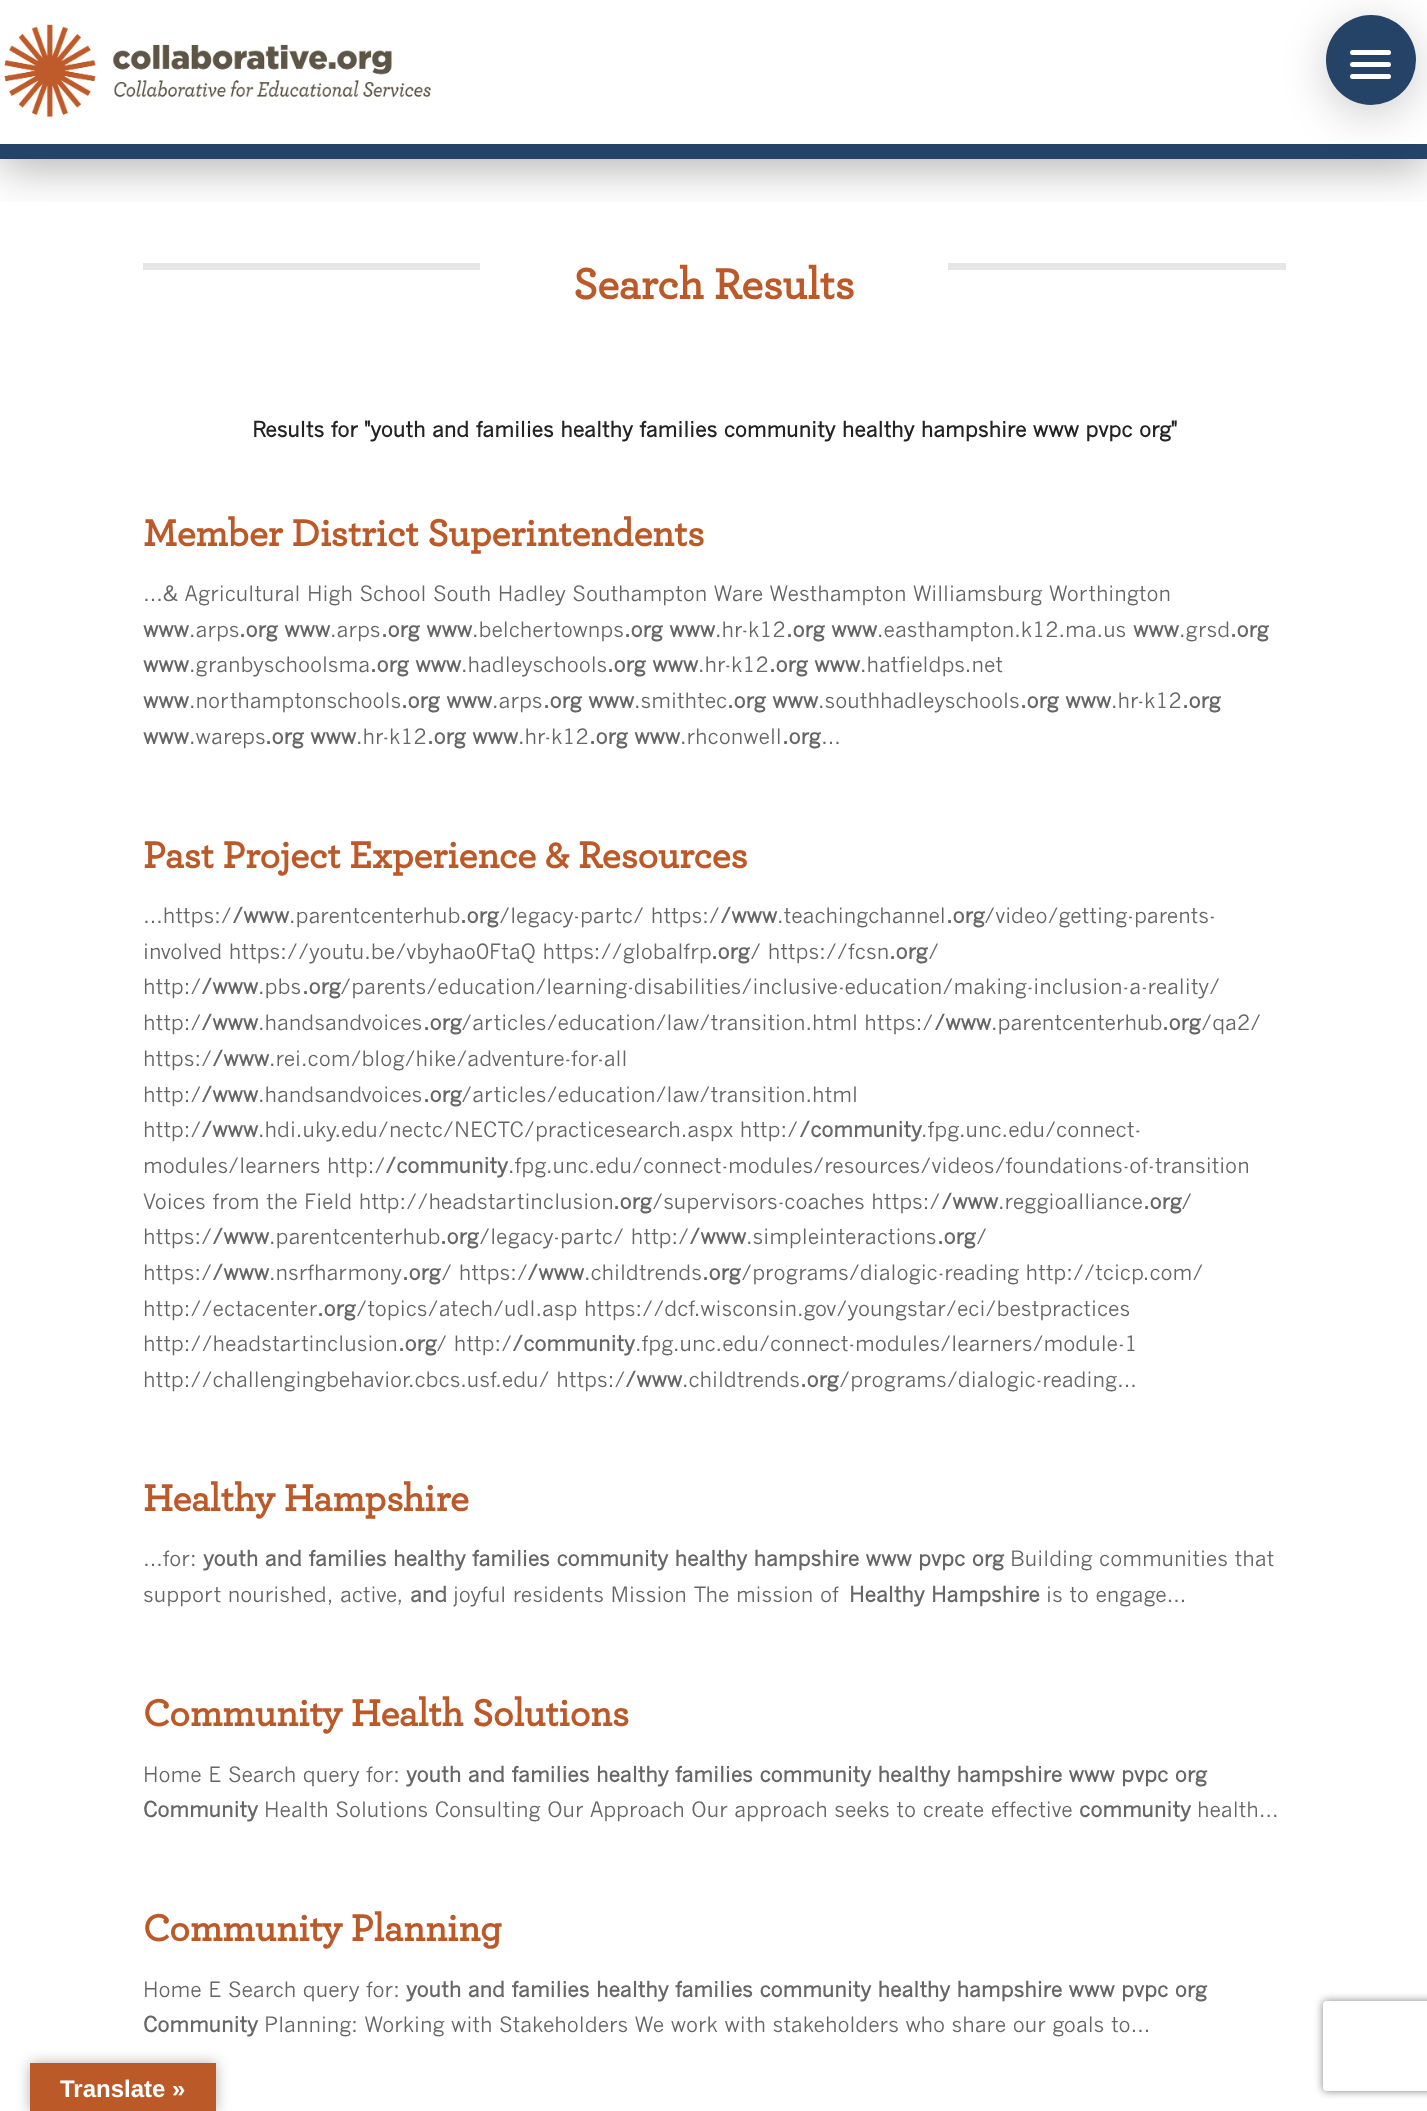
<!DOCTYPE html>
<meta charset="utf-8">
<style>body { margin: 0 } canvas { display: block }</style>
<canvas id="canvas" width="1427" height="2111"></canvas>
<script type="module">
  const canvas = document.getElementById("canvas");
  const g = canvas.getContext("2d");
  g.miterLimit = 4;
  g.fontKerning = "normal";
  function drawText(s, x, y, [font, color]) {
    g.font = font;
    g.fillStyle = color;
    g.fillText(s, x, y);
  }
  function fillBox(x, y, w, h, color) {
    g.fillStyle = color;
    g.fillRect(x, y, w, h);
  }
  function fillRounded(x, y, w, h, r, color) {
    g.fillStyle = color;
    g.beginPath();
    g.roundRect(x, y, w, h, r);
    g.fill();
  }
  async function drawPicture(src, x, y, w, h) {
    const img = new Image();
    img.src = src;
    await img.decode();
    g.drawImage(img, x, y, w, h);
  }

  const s1 = ["bold 24px Liberation Sans", "#FFFFFF"];
  const s2 = ["bold 45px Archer", "#BC5928"];
  const s3 = ["bold 21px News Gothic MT", "#232323"];
  const s4 = ["bold 39px Archer", "#BC5928"];
  const s5 = ["21px News Gothic MT", "#666666"];
  const s6 = ["bold 21px News Gothic MT", "#666666"];

  fillBox(0, 0, 1427, 2111, "#FFFFFF");
  g.save();
  g.beginPath();
  g.rect(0, 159, 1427, 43);
  g.clip();
  g.fillStyle = "rgba(0, 0, 0, 0.3)";
  g.filter = "blur(22.5px)";
  g.beginPath();
  g.rect(0, 9, 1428, 159);
  g.fill();
  g.filter = "none";
  g.restore();
  await drawPicture("pic1.png", 4, 24, 427, 94);
  fillBox(0, 144, 1427, 15, "#244367");
  g.fillStyle = "rgba(0, 0, 0, 0.2)";
  g.filter = "blur(22.5px)";
  g.beginPath();
  g.roundRect(1326, 24, 90, 90, 45);
  g.fill();
  g.filter = "none";
  g.fillStyle = "#244367";
  g.beginPath();
  g.arc(1371, 60, 45, 0, Math.PI * 2);
  g.fill();
  fillRounded(1350, 62, 41, 5, 2.5, "#FFFFFF");
  fillRounded(1350, 50, 41, 5, 2.5, "#FFFFFF");
  fillRounded(1350, 74, 41, 5, 2.5, "#FFFFFF");
  g.fillStyle = "rgba(0, 0, 0, 0.3)";
  g.filter = "blur(7px)";
  g.beginPath();
  g.rect(30, 2063, 186, 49);
  g.fill();
  g.filter = "none";
  fillBox(30, 2063, 186, 48, "#BC5928");
  drawText("Translate »", 60, 2097, s1);
  fillBox(143, 263, 1143, 7, "#E6E6E6");
  fillBox(480, 263, 468, 7, "#FFFFFF");
  drawText("Search Results", 573, 299, s2);
  drawText("Results for \"youth and families healthy families community healthy hampshire www pvpc org\"", 252, 437, s3);
  drawText("Member District Superintendents", 143, 546, s4);
  drawText("…& Agricultural High School South Hadley Southampton Ware Westhampton Williamsburg Worthington", 143, 601, s5);
  drawText("www", 143, 637, s6);
  drawText(".arps", 189, 637, s5);
  drawText(".org www", 239, 637, s6);
  drawText(".arps", 330, 637, s5);
  drawText(".org www", 381, 637, s6);
  drawText(".belchertownps", 472, 637, s5);
  drawText(".org www", 624, 637, s6);
  drawText(".hr-k12", 715, 637, s5);
  drawText(".org www", 786, 637, s6);
  drawText(".easthampton.k12.ma.us", 877, 637, s5);
  drawText("www", 1133, 637, s6);
  drawText(".grsd", 1179, 637, s5);
  drawText(".org", 1230, 637, s6);
  drawText("www", 143, 672, s6);
  drawText(".granbyschoolsma", 189, 672, s5);
  drawText(".org www", 370, 672, s6);
  drawText(".hadleyschools", 461, 672, s5);
  drawText(".org www", 607, 672, s6);
  drawText(".hr-k12", 698, 672, s5);
  drawText(".org www", 769, 672, s6);
  drawText(".hatfieldps.net", 860, 672, s5);
  drawText("www", 143, 708, s6);
  drawText(".northamptonschools", 189, 708, s5);
  drawText(".org www", 401, 708, s6);
  drawText(".arps", 492, 708, s5);
  drawText(".org www", 543, 708, s6);
  drawText(".smithtec", 634, 708, s5);
  drawText(".org www", 727, 708, s6);
  drawText(".southhadleyschools", 818, 708, s5);
  drawText(".org www", 1020, 708, s6);
  drawText(".hr-k12", 1111, 708, s5);
  drawText(".org", 1182, 708, s6);
  drawText("www", 143, 744, s6);
  drawText(".wareps", 189, 744, s5);
  drawText(".org www", 265, 744, s6);
  drawText(".hr-k12", 356, 744, s5);
  drawText(".org www", 427, 744, s6);
  drawText(".hr-k12", 518, 744, s5);
  drawText(".org www", 589, 744, s6);
  drawText(".rhconwell", 680, 744, s5);
  drawText(".org", 782, 744, s6);
  drawText("…", 821, 744, s5);
  drawText("Past Project Experience & Resources", 143, 868, s4);
  drawText("…https:/", 143, 923, s5);
  drawText("/www", 232, 923, s6);
  drawText(".parentcenterhub", 289, 923, s5);
  drawText(".org", 460, 923, s6);
  drawText("/legacy-partc/ https:/", 499, 923, s5);
  drawText("/www", 720, 923, s6);
  drawText(".teachingchannel", 777, 923, s5);
  drawText(".org", 946, 923, s6);
  drawText("/video/getting-parents-", 984, 923, s5);
  drawText("involved https://youtu.be/vbyhao0FtaQ https://globalfrp", 143, 959, s5);
  drawText(".org", 711, 959, s6);
  drawText("/ https://fcsn", 750, 959, s5);
  drawText(".org", 889, 959, s6);
  drawText("/", 928, 959, s5);
  drawText("http:/", 143, 994, s5);
  drawText("/www", 201, 994, s6);
  drawText(".pbs", 258, 994, s5);
  drawText(".org", 302, 994, s6);
  drawText("/parents/education/learning-disabilities/inclusive-education/making-inclusion-a-reality/", 340, 994, s5);
  drawText("http:/", 143, 1030, s5);
  drawText("/www", 201, 1030, s6);
  drawText(".handsandvoices", 258, 1030, s5);
  drawText(".org", 423, 1030, s6);
  drawText("/articles/education/law/transition.html https:/", 461, 1030, s5);
  drawText("/www", 934, 1030, s6);
  drawText(".parentcenterhub", 991, 1030, s5);
  drawText(".org", 1162, 1030, s6);
  drawText("/qa2/", 1201, 1030, s5);
  drawText("https:/", 143, 1066, s5);
  drawText("/www", 212, 1066, s6);
  drawText(".rei.com/blog/hike/adventure-for-all", 269, 1066, s5);
  drawText("http:/", 143, 1102, s5);
  drawText("/www", 201, 1102, s6);
  drawText(".handsandvoices", 258, 1102, s5);
  drawText(".org", 423, 1102, s6);
  drawText("/articles/education/law/transition.html", 461, 1102, s5);
  drawText("http:/", 143, 1137, s5);
  drawText("/www", 201, 1137, s6);
  drawText(".hdi.uky.edu/nectc/NECTC/practicesearch.aspx http:/", 258, 1137, s5);
  drawText("/community", 799, 1137, s6);
  drawText(".fpg.unc.edu/connect-", 921, 1137, s5);
  drawText("modules/learners http:/", 143, 1173, s5);
  drawText("/community", 385, 1173, s6);
  drawText(".fpg.unc.edu/connect-modules/resources/videos/foundations-of-transition", 508, 1173, s5);
  drawText("Voices from the Field http://headstartinclusion", 143, 1209, s5);
  drawText(".org", 613, 1209, s6);
  drawText("/supervisors-coaches https:/", 652, 1209, s5);
  drawText("/www", 941, 1209, s6);
  drawText(".reggioalliance", 998, 1209, s5);
  drawText(".org", 1143, 1209, s6);
  drawText("/", 1181, 1209, s5);
  drawText("https:/", 143, 1244, s5);
  drawText("/www", 212, 1244, s6);
  drawText(".parentcenterhub", 269, 1244, s5);
  drawText(".org", 440, 1244, s6);
  drawText("/legacy-partc/ http:/", 479, 1244, s5);
  drawText("/www", 689, 1244, s6);
  drawText(".simpleinteractions", 746, 1244, s5);
  drawText(".org", 937, 1244, s6);
  drawText("/", 976, 1244, s5);
  drawText("https:/", 143, 1280, s5);
  drawText("/www", 212, 1280, s6);
  drawText(".nsrfharmony", 269, 1280, s5);
  drawText(".org", 402, 1280, s6);
  drawText("/ https:/", 441, 1280, s5);
  drawText("/www", 527, 1280, s6);
  drawText(".childtrends", 584, 1280, s5);
  drawText(".org", 702, 1280, s6);
  drawText("/programs/dialogic-reading http://tcicp.com/", 741, 1280, s5);
  drawText("http://ectacenter", 143, 1316, s5);
  drawText(".org", 317, 1316, s6);
  drawText("/topics/atech/udl.asp https://dcf.wisconsin.gov/youngstar/eci/bestpractices", 356, 1316, s5);
  drawText("http://headstartinclusion", 143, 1351, s5);
  drawText(".org", 398, 1351, s6);
  drawText("/ http:/", 436, 1351, s5);
  drawText("/community", 512, 1351, s6);
  drawText(".fpg.unc.edu/connect-modules/learners/module-1", 635, 1351, s5);
  drawText("http://challengingbehavior.cbcs.usf.edu/ https:/", 143, 1387, s5);
  drawText("/www", 625, 1387, s6);
  drawText(".childtrends", 682, 1387, s5);
  drawText(".org", 800, 1387, s6);
  drawText("/programs/dialogic-reading…", 839, 1387, s5);
  drawText("Healthy Hampshire", 143, 1511, s4);
  drawText("…for:", 143, 1566, s5);
  drawText("youth and families healthy families community healthy hampshire www pvpc org", 203, 1566, s6);
  drawText("Building communities that", 1010, 1566, s5);
  drawText("support nourished, active,", 143, 1602, s5);
  drawText("and", 410, 1602, s6);
  drawText("joyful residents Mission The mission of", 453, 1602, s5);
  drawText("Healthy Hampshire", 849, 1602, s6);
  drawText("is to engage…", 1046, 1602, s5);
  drawText("Community Health Solutions", 143, 1726, s4);
  drawText("Home E Search query for:", 143, 1782, s5);
  drawText("youth and families healthy families community healthy hampshire www pvpc org", 406, 1782, s6);
  drawText("Community", 143, 1817, s6);
  drawText("Health Solutions Consulting Our Approach Our approach seeks to create effective", 264, 1817, s5);
  drawText("community", 1079, 1817, s6);
  drawText("health…", 1197, 1817, s5);
  drawText("Community Planning", 143, 1941, s4);
  drawText("Home E Search query for:", 143, 1997, s5);
  drawText("youth and families healthy families community healthy hampshire www pvpc org", 406, 1997, s6);
  drawText("Community", 143, 2032, s6);
  drawText("Planning: Working with Stakeholders We work with stakeholders who share our goals to…", 264, 2032, s5);
  g.save();
  g.beginPath();
  g.moveTo(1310, 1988);
  g.lineTo(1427, 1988);
  g.lineTo(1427, 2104);
  g.lineTo(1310, 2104);
  g.closePath();
  g.moveTo(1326, 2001);
  g.lineTo(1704, 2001);
  g.bezierCurveTo(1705.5, 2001, 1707, 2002.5, 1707, 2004);
  g.lineTo(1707, 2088);
  g.bezierCurveTo(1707, 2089.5, 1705.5, 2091, 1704, 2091);
  g.lineTo(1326, 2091);
  g.bezierCurveTo(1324.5, 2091, 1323, 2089.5, 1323, 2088);
  g.lineTo(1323, 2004);
  g.bezierCurveTo(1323, 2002.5, 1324.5, 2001, 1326, 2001);
  g.closePath();
  g.clip("evenodd");
  g.fillStyle = "#808080";
  g.filter = "blur(4px)";
  g.beginPath();
  g.roundRect(1323, 2001, 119, 90, 3);
  g.fill();
  g.filter = "none";
  g.restore();
</script>
